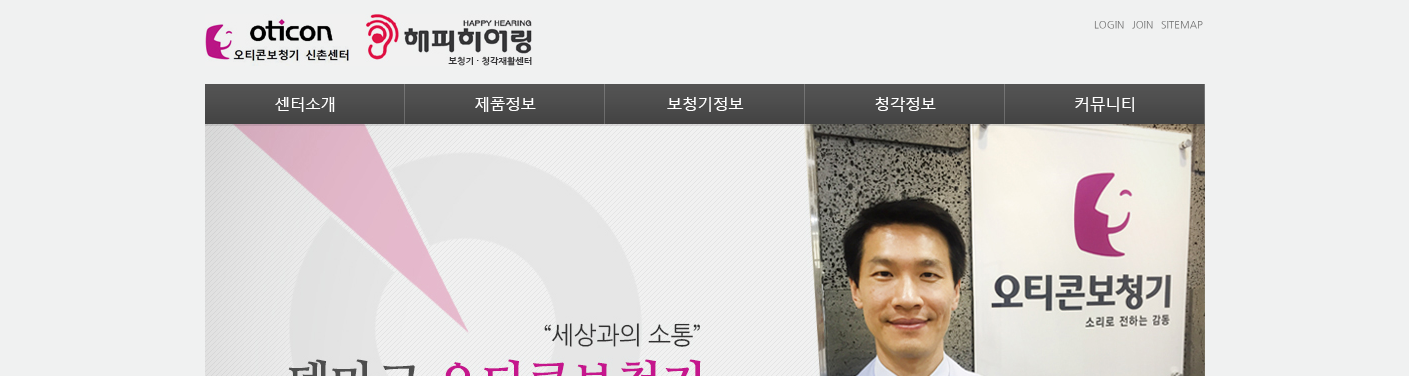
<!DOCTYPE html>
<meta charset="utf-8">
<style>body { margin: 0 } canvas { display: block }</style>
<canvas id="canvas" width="1409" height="376"></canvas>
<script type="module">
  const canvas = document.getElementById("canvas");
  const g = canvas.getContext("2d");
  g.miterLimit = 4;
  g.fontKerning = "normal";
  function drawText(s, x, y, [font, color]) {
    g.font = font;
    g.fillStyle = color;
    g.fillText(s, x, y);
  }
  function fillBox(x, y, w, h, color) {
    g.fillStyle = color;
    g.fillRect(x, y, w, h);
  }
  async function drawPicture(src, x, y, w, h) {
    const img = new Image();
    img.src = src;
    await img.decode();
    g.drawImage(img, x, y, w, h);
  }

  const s1 = ["10px NanumGothic", "#707070"];

  fillBox(0, 0, 1409, 376, "#F0F1F1");
  await drawPicture("pic1.png", 205, 14, 327, 52);
  drawText("LOGIN", 1094, 28, s1);
  drawText("JOIN", 1132, 28, s1);
  drawText("SITEMAP", 1161, 28, s1);
  await drawPicture("pic2.png", 205, 84, 200, 40);
  await drawPicture("pic3.png", 405, 84, 200, 40);
  await drawPicture("pic4.png", 605, 84, 200, 40);
  await drawPicture("pic5.png", 805, 84, 200, 40);
  await drawPicture("pic6.png", 1005, 84, 200, 40);
  await drawPicture("pic7.png", 205, 124, 1000, 252);
</script>
